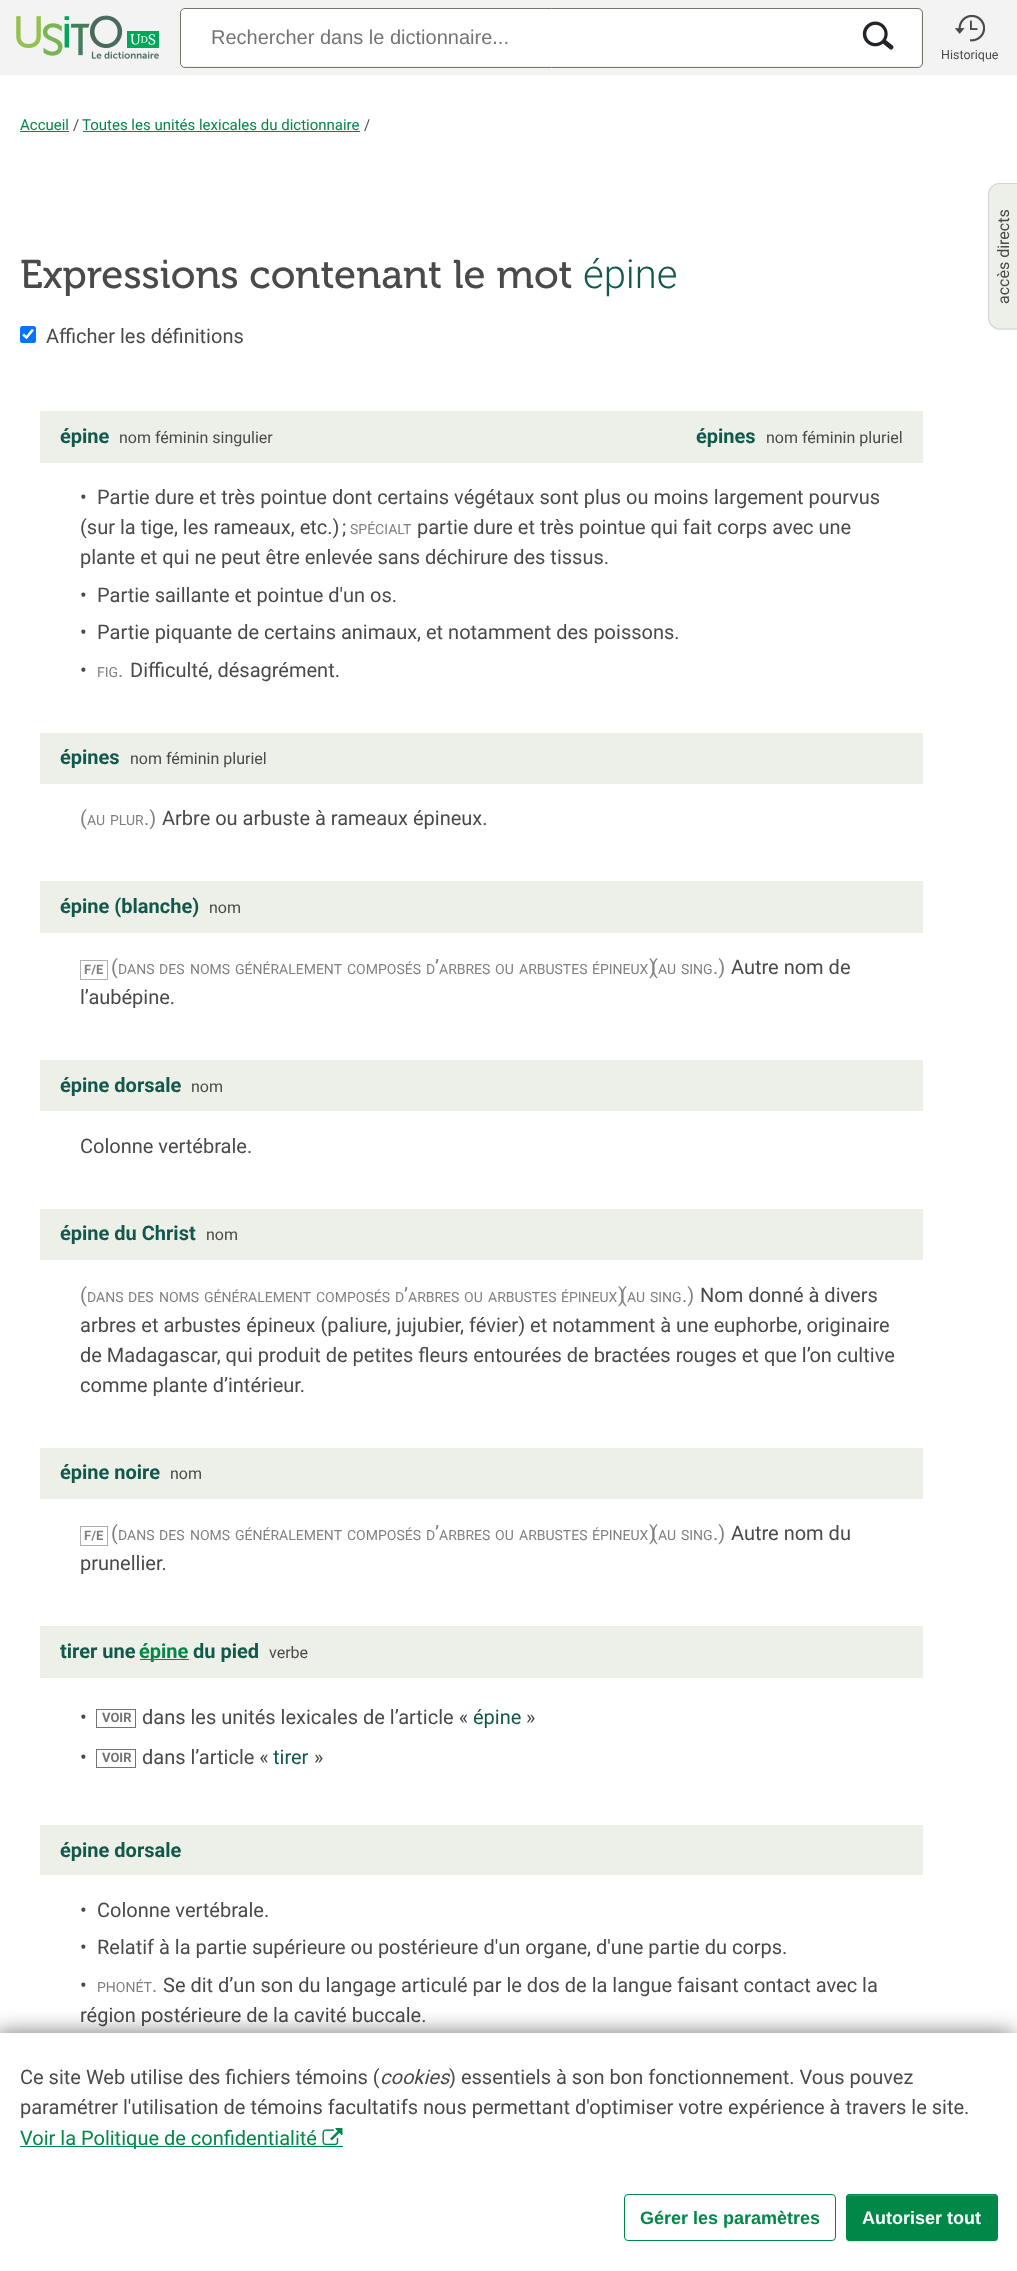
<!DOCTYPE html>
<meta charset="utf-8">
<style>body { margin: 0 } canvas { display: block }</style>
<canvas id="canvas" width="1017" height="2271"></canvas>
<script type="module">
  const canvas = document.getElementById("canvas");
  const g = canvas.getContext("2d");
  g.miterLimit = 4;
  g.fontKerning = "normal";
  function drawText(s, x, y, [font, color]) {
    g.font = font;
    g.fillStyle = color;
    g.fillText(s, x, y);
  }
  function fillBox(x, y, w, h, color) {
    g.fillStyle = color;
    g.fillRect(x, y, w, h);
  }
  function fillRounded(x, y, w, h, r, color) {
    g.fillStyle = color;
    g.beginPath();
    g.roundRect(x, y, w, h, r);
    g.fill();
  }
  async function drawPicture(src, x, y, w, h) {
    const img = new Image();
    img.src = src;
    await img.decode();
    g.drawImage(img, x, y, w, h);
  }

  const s1 = ["20px Liberation Sans", "#737373"];
  const s2 = ["12.5px Roboto", "#4A4A4A"];
  const s3 = ["15px Roboto", "#018849"];
  const s4 = ["15px Roboto", "#4A4A4A"];
  const s5 = ["40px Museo", "#4A4A4A"];
  const s6 = ["300 40px Roboto", "#11594B"];
  const s7 = ["20px Roboto", "#4A4A4A"];
  const s8 = ["bold 20px Roboto", "#11594B"];
  const s9 = ["16px Roboto", "#4A4A4A"];
  const s10 = ["14px Roboto", "#808080"];
  const s11 = ["20px Roboto", "#808080"];
  const s12 = ["bold 13px Roboto", "#808080"];
  const s13 = ["bold 20px Roboto", "#018849"];
  const s14 = ["bold 13px Roboto", "#737373"];
  const s15 = ["20px Roboto", "#11594B"];
  const s16 = ["italic 20px Roboto", "#4A4A4A"];
  const s17 = ["20px Roboto", "#018849"];
  const s18 = ["bold 18px Liberation Sans", "#018849"];
  const s19 = ["bold 18px Liberation Sans", "#FFFFFF"];

  fillBox(0, 0, 1017, 2271, "#FFFFFF");
  fillBox(0, 0, 1017, 75, "#F3F3F3");
  await drawPicture("pic1.png", 16, 15, 143, 44);
  fillRounded(181, 9, 740, 57, 4, "#FFFFFF");
  g.beginPath();
  g.roundRect(180.5, 8.5, 742, 59, 4.5);
  g.strokeStyle = "#727868";
  g.stroke();
  drawText("Rechercher dans le dictionnaire...", 211, 44, s1);
  await drawPicture("pic2.png", 862, 21, 32, 29);
  await drawPicture("pic3.png", 955, 14, 30, 28);
  drawText("Historique", 941, 59, s2);
  drawText("Accueil", 20, 130, s3);
  fillBox(20, 131, 49, 1, "#018849");
  drawText("/", 73, 130, s4);
  drawText("Toutes les unités lexicales du dictionnaire", 82, 130, s3);
  fillBox(83, 131, 277, 1, "#018849");
  drawText("/", 364, 130, s4);
  drawText("Expressions contenant le mot", 20, 288, s5);
  drawText("épine", 583, 288, s6);
  fillRounded(20, 326, 16, 17, 2.5, "#0075FF");
  g.beginPath();
  g.moveTo(23, 334.5);
  g.lineTo(26.5, 337.5);
  g.lineTo(33, 329.5);
  g.strokeStyle = "#FFFFFF";
  g.lineWidth = 2.6;
  g.stroke();
  drawText("Afficher les définitions", 46, 343, s7);
  fillBox(40, 411, 883, 52, "#EDEFE9");
  drawText("épine", 60, 443, s8);
  drawText("nom féminin singulier", 119, 443, s9);
  drawText("épines", 696, 443, s8);
  drawText("nom féminin pluriel", 766, 443, s9);
  drawText("•", 80, 504, s7);
  drawText("Partie dure et très pointue dont certains végétaux sont plus ou moins largement pourvus", 97, 504, s7);
  drawText("(sur la tige, les rameaux, etc.)", 80, 534, s7);
  drawText(";", 342, 534, s7);
  drawText("SPÉCIALT", 350, 534, s10);
  drawText("partie dure et très pointue qui fait corps avec une", 417, 534, s7);
  drawText("plante et qui ne peut être enlevée sans déchirure des tissus.", 80, 564, s7);
  drawText("•", 80, 602, s7);
  drawText("Partie saillante et pointue d'un os.", 97, 602, s7);
  drawText("•", 80, 639, s7);
  drawText("Partie piquante de certains animaux, et notamment des poissons.", 97, 639, s7);
  drawText("•", 80, 677, s7);
  drawText("FIG", 97, 677, s10);
  drawText(".", 118, 677, s11);
  drawText("Difficulté, désagrément.", 130, 677, s7);
  fillBox(40, 733, 883, 51, "#EDEFE9");
  drawText("épines", 60, 764, s8);
  drawText("nom féminin pluriel", 130, 764, s9);
  drawText("(", 80, 825, s11);
  drawText("AU", 87, 825, s10);
  drawText("PLUR", 110, 825, s10);
  drawText(".)", 144, 825, s11);
  drawText("Arbre ou arbuste à rameaux épineux.", 162, 825, s7);
  fillBox(40, 881, 883, 52, "#EDEFE9");
  drawText("épine (blanche)", 60, 913, s8);
  drawText("nom", 209, 913, s9);
  g.strokeStyle = "#AFAFAF";
  g.lineWidth = 1;
  g.strokeRect(80.5, 960.5, 27, 19);
  drawText("F/E", 84, 974, s12);
  drawText("(", 111, 974, s11);
  drawText("DANS", 118, 974, s10);
  drawText("DES", 159, 974, s10);
  drawText("NOMS", 190, 974, s10);
  drawText("GÉNÉRALEMENT", 235, 974, s10);
  drawText("COMPOSÉS", 347, 974, s10);
  drawText("D", 426, 974, s10);
  drawText("’", 435, 974, s11);
  drawText("ARBRES", 439, 974, s10);
  drawText("OU", 495, 974, s10);
  drawText("ARBUSTES", 519, 974, s10);
  drawText("ÉPINEUX", 592, 974, s10);
  drawText(")", 649, 974, s11);
  drawText("(", 651, 974, s11);
  drawText("AU", 658, 974, s10);
  drawText("SING", 681, 974, s10);
  drawText(".)", 713, 974, s11);
  drawText("Autre nom de", 731, 974, s7);
  drawText("l’aubépine.", 80, 1004, s7);
  fillBox(40, 1060, 883, 51, "#EDEFE9");
  drawText("épine dorsale", 60, 1092, s8);
  drawText("nom", 191, 1092, s9);
  drawText("Colonne vertébrale.", 80, 1153, s7);
  fillBox(40, 1209, 883, 51, "#EDEFE9");
  drawText("épine du Christ", 60, 1240, s8);
  drawText("nom", 206, 1240, s9);
  drawText("(", 80, 1302, s11);
  drawText("DANS", 87, 1302, s10);
  drawText("DES", 128, 1302, s10);
  drawText("NOMS", 159, 1302, s10);
  drawText("GÉNÉRALEMENT", 204, 1302, s10);
  drawText("COMPOSÉS", 316, 1302, s10);
  drawText("D", 395, 1302, s10);
  drawText("’", 404, 1302, s11);
  drawText("ARBRES", 408, 1302, s10);
  drawText("OU", 464, 1302, s10);
  drawText("ARBUSTES", 488, 1302, s10);
  drawText("ÉPINEUX", 561, 1302, s10);
  drawText(")", 618, 1302, s11);
  drawText("(", 620, 1302, s11);
  drawText("AU", 627, 1302, s10);
  drawText("SING", 650, 1302, s10);
  drawText(".)", 682, 1302, s11);
  drawText("Nom donné à divers", 700, 1302, s7);
  drawText("arbres et arbustes épineux (paliure, jujubier, févier) et notamment à une euphorbe, originaire", 80, 1332, s7);
  drawText("de Madagascar, qui produit de petites fleurs entourées de bractées rouges et que l’on cultive", 80, 1362, s7);
  drawText("comme plante d’intérieur.", 80, 1392, s7);
  fillBox(40, 1448, 883, 51, "#EDEFE9");
  drawText("épine noire", 60, 1479, s8);
  drawText("nom", 170, 1479, s9);
  g.strokeRect(80.5, 1526.5, 27, 19);
  drawText("F/E", 84, 1540, s12);
  drawText("(", 111, 1540, s11);
  drawText("DANS", 118, 1540, s10);
  drawText("DES", 159, 1540, s10);
  drawText("NOMS", 190, 1540, s10);
  drawText("GÉNÉRALEMENT", 235, 1540, s10);
  drawText("COMPOSÉS", 347, 1540, s10);
  drawText("D", 426, 1540, s10);
  drawText("’", 435, 1540, s11);
  drawText("ARBRES", 439, 1540, s10);
  drawText("OU", 495, 1540, s10);
  drawText("ARBUSTES", 519, 1540, s10);
  drawText("ÉPINEUX", 592, 1540, s10);
  drawText(")", 649, 1540, s11);
  drawText("(", 651, 1540, s11);
  drawText("AU", 658, 1540, s10);
  drawText("SING", 681, 1540, s10);
  drawText(".)", 713, 1540, s11);
  drawText("Autre nom du", 731, 1540, s7);
  drawText("prunellier.", 80, 1570, s7);
  fillBox(40, 1626, 883, 52, "#EDEFE9");
  drawText("tirer une", 60, 1658, s8);
  fillBox(140, 1659, 49, 1, "#018849");
  drawText("épine", 139, 1658, s13);
  drawText("du pied", 193, 1658, s8);
  drawText("verbe", 269, 1658, s9);
  drawText("•", 80, 1724, s7);
  g.strokeStyle = "#737373";
  g.strokeRect(96.5, 1709.5, 39, 18);
  drawText("VOIR", 102, 1722, s14);
  drawText("dans les unités lexicales de l’article «", 142, 1724, s7);
  drawText("épine", 473, 1724, s15);
  drawText("»", 526, 1724, s7);
  drawText("•", 80, 1764, s7);
  g.strokeRect(96.5, 1749.5, 39, 18);
  drawText("VOIR", 102, 1762, s14);
  drawText("dans l’article «", 142, 1764, s7);
  drawText("tirer", 273, 1764, s15);
  drawText("»", 314, 1764, s7);
  fillBox(40, 1825, 883, 50, "#EDEFE9");
  drawText("épine dorsale", 60, 1857, s8);
  drawText("•", 80, 1917, s7);
  drawText("Colonne vertébrale.", 97, 1917, s7);
  drawText("•", 80, 1954, s7);
  drawText("Relatif à la partie supérieure ou postérieure d'un organe, d'une partie du corps.", 97, 1954, s7);
  drawText("•", 80, 1992, s7);
  drawText("PHONÉT", 97, 1992, s10);
  drawText(".", 152, 1992, s11);
  drawText("Se dit d’un son du langage articulé par le dos de la langue faisant contact avec la", 163, 1992, s7);
  drawText("région postérieure de la cavité buccale.", 80, 2022, s7);
  g.fillStyle = "rgba(0, 0, 0, 0.55)";
  g.filter = "blur(11px)";
  g.beginPath();
  g.rect(-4, 2033, 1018, 238);
  g.fill();
  g.filter = "none";
  fillBox(0, 2033, 1017, 238, "#FFFFFF");
  drawText("Ce site Web utilise des fichiers témoins (", 20, 2084, s7);
  drawText("cookies", 380, 2084, s16);
  drawText(") essentiels à son bon fonctionnement. Vous pouvez", 449, 2084, s7);
  drawText("paramétrer l'utilisation de témoins facultatifs nous permettant d'optimiser votre expérience à travers le site.", 20, 2114, s7);
  fillBox(20, 2146, 323, 1, "#018849");
  drawText("Voir la Politique de confidentialité", 20, 2145, s17);
  await drawPicture("pic4.png", 322, 2128, 21, 18);
  g.beginPath();
  g.roundRect(624.5, 2194.5, 211, 46, 3.5);
  g.strokeStyle = "#018849";
  g.stroke();
  drawText("Gérer les paramètres", 640, 2224, s18);
  g.fillStyle = "rgba(0, 0, 0, 0.07)";
  g.filter = "blur(0.5px)";
  g.beginPath();
  g.roundRect(846, 2195, 152, 48, 4);
  g.fill();
  g.filter = "none";
  fillRounded(846, 2194, 152, 47, 4, "#018849");
  g.fillStyle = "#279A64";
  g.beginPath();
  g.moveTo(850, 2196);
  g.lineTo(994, 2196);
  g.bezierCurveTo(995, 2196, 996, 2197, 996, 2199);
  g.bezierCurveTo(996, 2197, 996, 2195, 994, 2195);
  g.lineTo(850, 2195);
  g.bezierCurveTo(848, 2195, 848, 2197, 848, 2199);
  g.bezierCurveTo(848, 2197, 849, 2196, 850, 2196);
  g.closePath();
  g.fill();
  g.beginPath();
  g.roundRect(846.5, 2194.5, 151, 46, 3.5);
  g.stroke();
  drawText("Autoriser tout", 862, 2224, s19);
  g.fillStyle = "#EDEFE9";
  g.beginPath();
  g.moveTo(988, 317);
  g.lineTo(988, 195);
  g.bezierCurveTo(988, 188, 993, 183, 1000, 183);
  g.lineTo(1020, 183);
  g.lineTo(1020, 330);
  g.lineTo(1000, 330);
  g.bezierCurveTo(993, 330, 988, 324, 988, 317);
  g.closePath();
  g.fill();
  g.beginPath();
  g.moveTo(988.5, 317.5);
  g.lineTo(988.5, 195);
  g.bezierCurveTo(988.5, 188.5, 993.5, 183.5, 1000, 183.5);
  g.lineTo(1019.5, 183.5);
  g.lineTo(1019.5, 329);
  g.lineTo(1000, 329);
  g.bezierCurveTo(993.5, 329, 988.5, 324, 988.5, 317.5);
  g.closePath();
  g.strokeStyle = "#D3D3D3";
  g.lineWidth = 1.2;
  g.stroke();
  g.font = "16px Roboto";
  g.fillStyle = "#4A4A4A";
  g.save();
  g.translate(1009, 304);
  g.rotate(-90 * Math.PI / 180);
  g.fillText("accès directs", 0, 0);
  g.restore();
</script>
